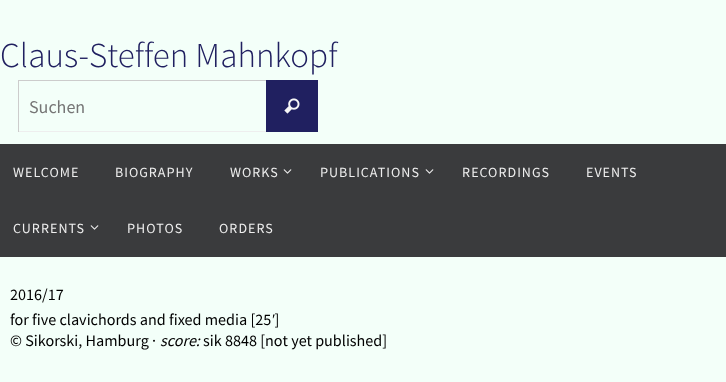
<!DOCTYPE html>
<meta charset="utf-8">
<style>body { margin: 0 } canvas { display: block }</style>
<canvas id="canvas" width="726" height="382"></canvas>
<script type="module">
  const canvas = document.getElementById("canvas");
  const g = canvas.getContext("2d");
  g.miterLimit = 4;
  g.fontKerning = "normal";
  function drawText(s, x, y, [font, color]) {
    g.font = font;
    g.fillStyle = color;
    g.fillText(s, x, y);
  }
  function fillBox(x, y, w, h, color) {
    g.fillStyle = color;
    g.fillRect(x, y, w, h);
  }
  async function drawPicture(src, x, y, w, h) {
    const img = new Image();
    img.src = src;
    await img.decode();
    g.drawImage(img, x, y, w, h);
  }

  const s1 = ["300 35px Source Sans Pro", "#202060"];
  const s2 = ["18px Source Sans Pro", "#757575"];
  const s3 = ["14px Source Sans Pro", "#EEEEEE"];
  const s4 = ["16.1px Source Sans Pro", "#000000"];
  const s5 = ["16.1px Liberation Serif", "#000000"];
  const s6 = ["italic 16.1px Source Sans Pro", "#000000"];

  fillBox(0, 0, 726, 382, "#F3FFF9");
  drawText("Claus-Steffen Mahnkopf", 0, 67, s1);
  fillBox(266, 80, 52, 52, "#202060");
  fillBox(18, 80, 248, 1, "#CCCCCC");
  fillBox(18, 131, 248, 1, "#EEEEEE");
  fillBox(18, 80, 1, 52, "#CCCCCC");
  drawText("Suchen", 29, 113, s2);
  await drawPicture("pic1.png", 284, 98, 16, 16);
  fillBox(0, 144, 726, 113, "#3A3B3D");
  g.letterSpacing = "1px";
  drawText("WELCOME", 13, 177, s3);
  drawText("BIOGRAPHY", 115, 177, s3);
  drawText("WORKS", 230, 177, s3);
  await drawPicture("pic2.png", 283, 169, 9, 5);
  drawText("PUBLICATIONS", 320, 177, s3);
  await drawPicture("pic2.png", 425, 169, 9, 5);
  drawText("RECORDINGS", 462, 177, s3);
  drawText("EVENTS", 586, 177, s3);
  drawText("CURRENTS", 13, 233, s3);
  await drawPicture("pic2.png", 90, 225, 9, 5);
  drawText("PHOTOS", 127, 233, s3);
  drawText("ORDERS", 219, 233, s3);
  g.letterSpacing = "0px";
  drawText("2016/17", 10, 300, s4);
  drawText("for five clavichords and fixed media [25 ]", 10, 325, s4);
  drawText("′", 272, 325, s5);
  drawText("© Sikorski, Hamburg ·", 10, 346, s4);
  drawText("score:", 160, 346, s6);
  drawText("sik 8848 [not yet published]", 203, 346, s4);
</script>
